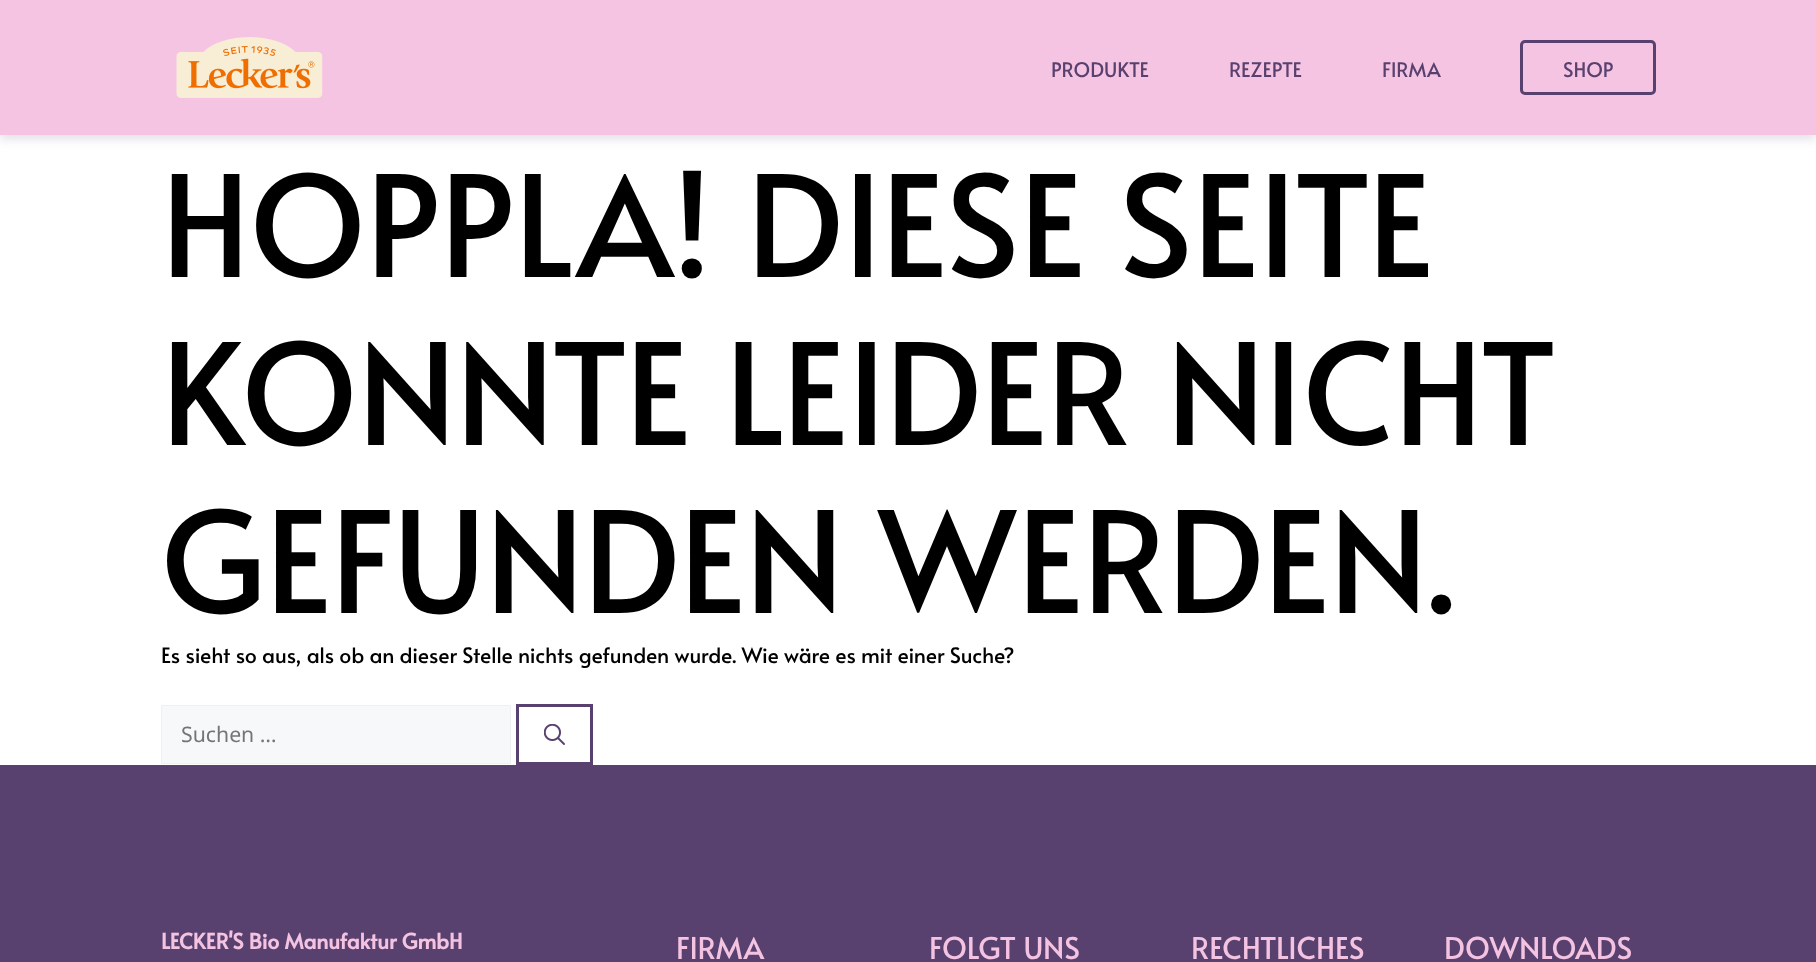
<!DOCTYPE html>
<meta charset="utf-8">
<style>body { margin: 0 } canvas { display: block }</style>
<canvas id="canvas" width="1816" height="962"></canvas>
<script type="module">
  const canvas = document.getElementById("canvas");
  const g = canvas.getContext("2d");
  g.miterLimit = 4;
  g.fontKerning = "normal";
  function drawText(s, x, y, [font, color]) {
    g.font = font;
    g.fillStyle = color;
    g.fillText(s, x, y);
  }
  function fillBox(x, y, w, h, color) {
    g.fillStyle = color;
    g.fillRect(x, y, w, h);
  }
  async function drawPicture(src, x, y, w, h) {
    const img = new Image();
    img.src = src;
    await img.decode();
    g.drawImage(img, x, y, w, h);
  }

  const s1 = ["20px Alata", "#58416E"];
  const s2 = ["140px Alata", "#000000"];
  const s3 = ["21.25px Alata", "#000000"];
  const s4 = ["21.25px Noto Sans", "#757575"];
  const s5 = ["bold 21.25px Alata", "#F5C3E2"];
  const s6 = ["30px Alata", "#F5C3E2"];

  fillBox(0, 0, 1816, 962, "#FFFFFF");
  g.fillStyle = "rgba(88, 65, 110, 0.15)";
  g.filter = "blur(5px)";
  g.beginPath();
  g.rect(0, 5, 1816, 135);
  g.fill();
  g.filter = "none";
  fillBox(0, 0, 1816, 135, "#F6C4E3");
  await drawPicture("pic1.png", 176, 37, 147, 61);
  drawText("PRODUKTE", 1051, 77, s1);
  drawText("REZEPTE", 1229, 77, s1);
  drawText("FIRMA", 1382, 77, s1);
  g.beginPath();
  g.roundRect(1521.5, 41.5, 133, 52, 3.5);
  g.strokeStyle = "#58416E";
  g.lineWidth = 3;
  g.stroke();
  drawText("SHOP", 1563, 77, s1);
  drawText("HOPPLA! DIESE SEITE", 161, 277, s2);
  drawText("KONNTE LEIDER NICHT", 161, 445, s2);
  drawText("GEFUNDEN WERDEN.", 161, 613, s2);
  drawText("Es sieht so aus, als ob an dieser Stelle nichts gefunden wurde. Wie wäre es mit einer Suche?", 161, 663, s3);
  g.fillStyle = "#F7F8F9";
  g.beginPath();
  g.rect(161.5, 705.5, 349, 58);
  g.fill();
  g.strokeStyle = "#F0F0F0";
  g.lineWidth = 1;
  g.stroke();
  drawText("Suchen …", 181, 742, s4);
  g.strokeStyle = "#58416E";
  g.lineWidth = 3;
  g.strokeRect(517.5, 705.5, 74, 58);
  await drawPicture("pic2.png", 544, 724, 21, 21);
  fillBox(0, 765, 1816, 197, "#58416E");
  drawText("LECKER'S Bio Manufaktur GmbH", 161, 949, s5);
  drawText("FIRMA", 676, 959, s6);
  drawText("FOLGT UNS", 929, 959, s6);
  drawText("RECHTLICHES", 1191, 959, s6);
  drawText("DOWNLOADS", 1444, 959, s6);
</script>
